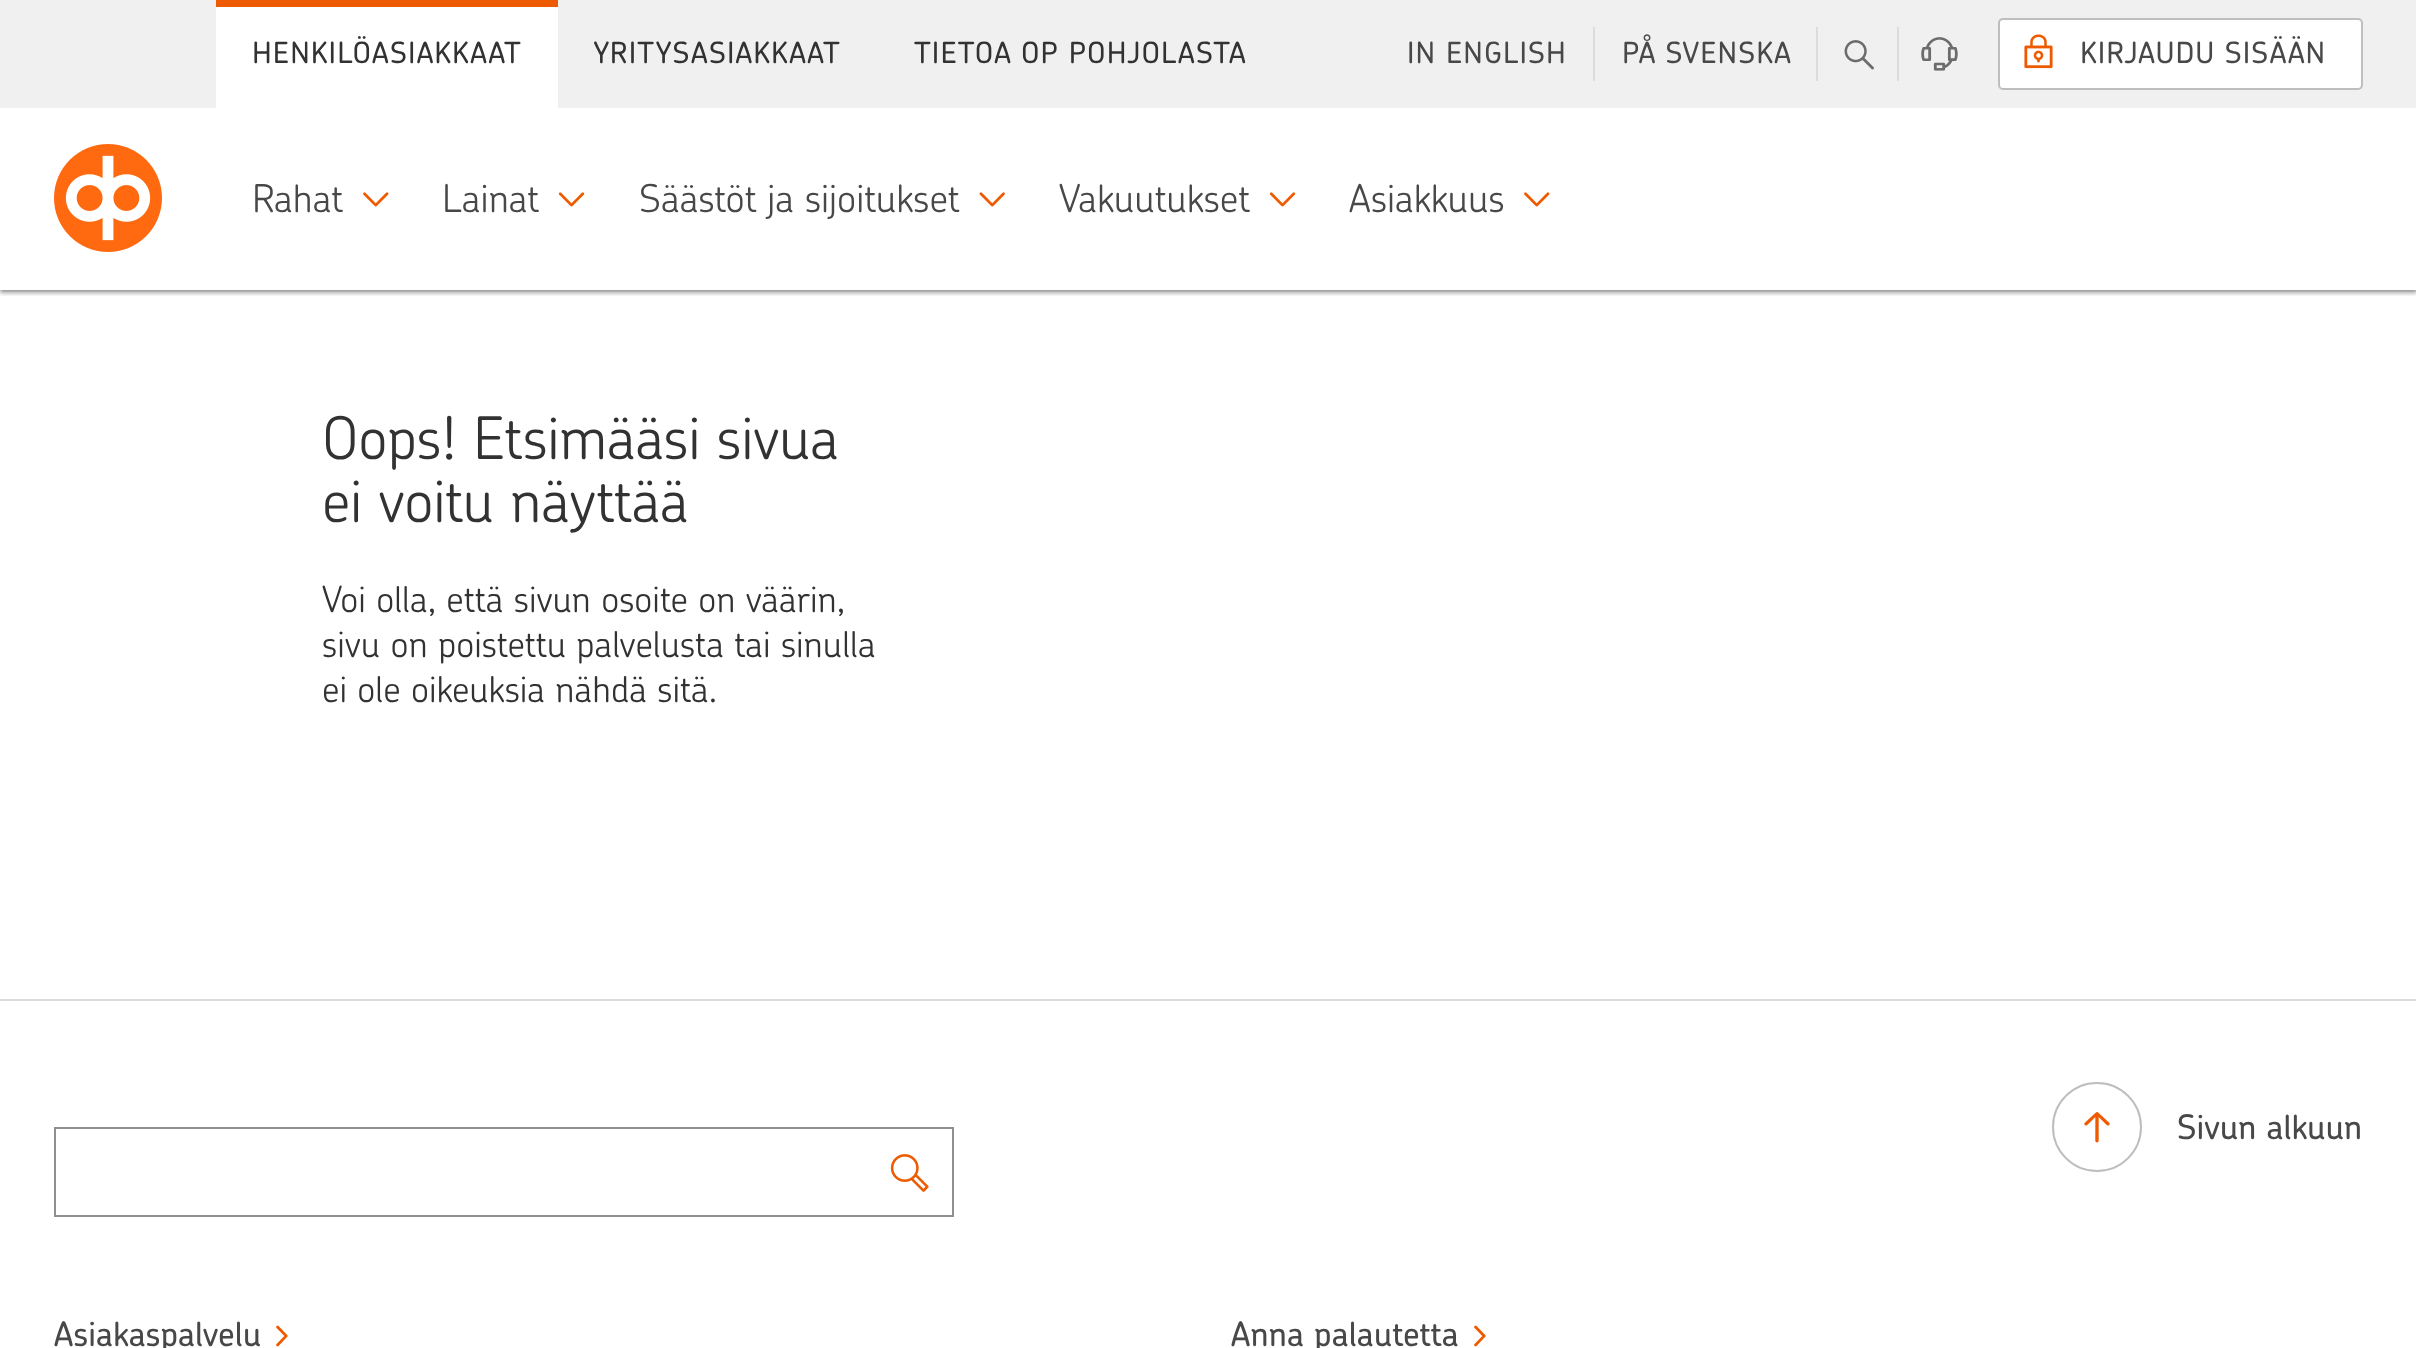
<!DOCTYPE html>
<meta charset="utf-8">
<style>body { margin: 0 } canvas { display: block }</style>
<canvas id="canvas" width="2416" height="1348"></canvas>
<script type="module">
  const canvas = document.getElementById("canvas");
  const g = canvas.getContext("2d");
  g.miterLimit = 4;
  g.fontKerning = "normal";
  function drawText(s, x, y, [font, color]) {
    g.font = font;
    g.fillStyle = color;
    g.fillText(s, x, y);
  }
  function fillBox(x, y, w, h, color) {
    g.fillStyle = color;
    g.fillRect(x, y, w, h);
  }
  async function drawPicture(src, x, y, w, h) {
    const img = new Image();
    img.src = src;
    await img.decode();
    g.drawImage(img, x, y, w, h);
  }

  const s1 = ["500 29.25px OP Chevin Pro", "#323232"];
  const s2 = ["500 29.25px OP Chevin Pro", "#484848"];
  const s3 = ["300 38.25px OP Chevin Pro", "#484848"];
  const s4 = ["300 58.5px OP Chevin Pro", "#323232"];
  const s5 = ["300 36px OP Chevin Pro", "#323232"];
  const s6 = ["500 33.75px OP Chevin Pro", "#484848"];
  const s7 = ["300 45px OP Chevin Pro", "#EE5A00"];

  fillBox(0, 0, 2416, 1348, "#FFFFFF");
  g.save();
  g.beginPath();
  g.rect(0, 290, 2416, 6);
  g.clip();
  g.fillStyle = "rgba(0, 0, 0, 0.36)";
  g.filter = "blur(2px)";
  g.beginPath();
  g.rect(0, 2, 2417, 291);
  g.fill();
  g.filter = "none";
  g.restore();
  g.save();
  g.beginPath();
  g.rect(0, 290, 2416, 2);
  g.clip();
  g.fillStyle = "rgba(0, 0, 0, 0.18)";
  g.filter = "blur(2px)";
  g.beginPath();
  g.rect(0, 0, 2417, 290);
  g.fill();
  g.filter = "none";
  g.restore();
  fillBox(0, 0, 2416, 108, "#F0F0F0");
  fillBox(216, 0, 342, 7, "#EE5A00");
  fillBox(216, 7, 342, 101, "#FFFFFF");
  g.letterSpacing = "1.1px";
  drawText("HENKILÖASIAKKAAT", 252, 63, s1);
  drawText("YRITYSASIAKKAAT", 594, 63, s1);
  drawText("TIETOA OP POHJOLASTA", 914, 63, s1);
  fillBox(1593, 27, 2, 54, "#DCDCDC");
  drawText("IN ENGLISH", 1407, 63, s2);
  fillBox(1816, 27, 2, 54, "#DCDCDC");
  drawText("PÅ SVENSKA", 1622, 63, s2);
  fillBox(1897, 27, 2, 54, "#DCDCDC");
  await drawPicture("pic1.png", 1844, 40, 30, 30);
  await drawPicture("pic2.png", 1921, 37, 37, 34);
  g.fillStyle = "#FFFFFF";
  g.beginPath();
  g.roundRect(1999, 19, 363, 70, 4);
  g.fill();
  g.strokeStyle = "#BEBEBE";
  g.lineWidth = 2;
  g.stroke();
  await drawPicture("pic3.png", 2024, 34, 29, 35);
  drawText("KIRJAUDU SISÄÄN", 2080, 63, s2);
  await drawPicture("pic4.png", 54, 144, 108, 108);
  g.letterSpacing = "0px";
  drawText("Rahat", 252, 212, s3);
  await drawPicture("pic5.png", 363, 192, 26, 15);
  drawText("Lainat", 442, 212, s3);
  await drawPicture("pic6.png", 558, 192, 27, 15);
  drawText("Säästöt ja sijoitukset", 639, 212, s3);
  await drawPicture("pic7.png", 979, 192, 26, 15);
  drawText("Vakuutukset", 1059, 212, s3);
  await drawPicture("pic6.png", 1269, 192, 27, 15);
  drawText("Asiakkuus", 1349, 212, s3);
  await drawPicture("pic5.png", 1524, 192, 26, 15);
  g.letterSpacing = "-0.25px";
  drawText("Oops! Etsimääsi sivua", 322, 459, s4);
  drawText("ei voitu näyttää", 322, 522, s4);
  g.letterSpacing = "0px";
  drawText("Voi olla, että sivun osoite on väärin,", 322, 612, s5);
  drawText("sivu on poistettu palvelusta tai sinulla", 322, 657, s5);
  drawText("ei ole oikeuksia nähdä sitä.", 322, 702, s5);
  fillBox(0, 999, 2416, 2, "#DCDCDC");
  g.strokeStyle = "#8F8F8F";
  g.strokeRect(55, 1128, 898, 88);
  await drawPicture("pic8.png", 890, 1154, 39, 38);
  await drawPicture("pic9.png", 2084, 1112, 26, 31);
  g.beginPath();
  g.arc(2097, 1127, 44, 0, Math.PI * 2);
  g.strokeStyle = "#BEBEBE";
  g.stroke();
  drawText("Sivun alkuun", 2177, 1139, s6);
  drawText("Asiakaspalvelu", 54, 1346, s6);
  drawText("›", 274, 1348, s7);
  drawText("Anna palautetta", 1231, 1346, s6);
  drawText("›", 1472, 1348, s7);
</script>
